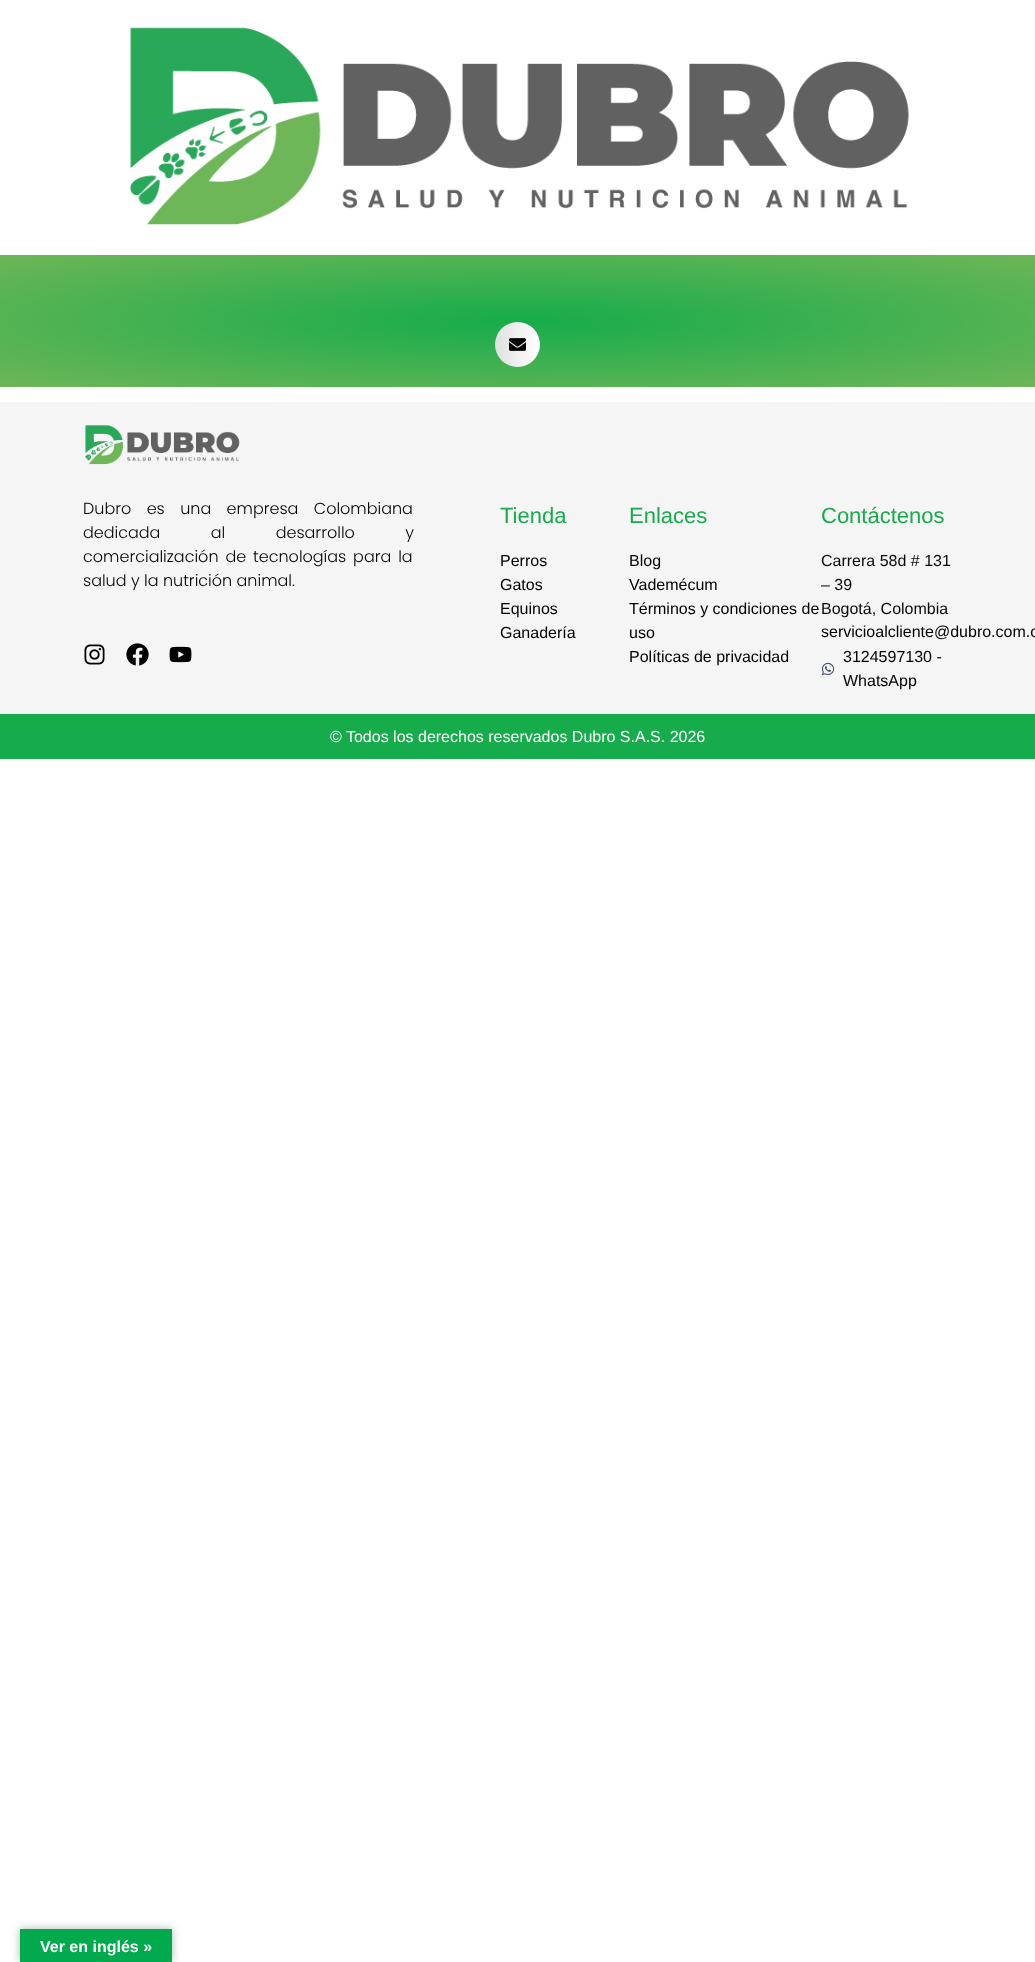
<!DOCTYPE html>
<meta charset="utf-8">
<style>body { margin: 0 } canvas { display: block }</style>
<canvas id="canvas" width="1035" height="1962"></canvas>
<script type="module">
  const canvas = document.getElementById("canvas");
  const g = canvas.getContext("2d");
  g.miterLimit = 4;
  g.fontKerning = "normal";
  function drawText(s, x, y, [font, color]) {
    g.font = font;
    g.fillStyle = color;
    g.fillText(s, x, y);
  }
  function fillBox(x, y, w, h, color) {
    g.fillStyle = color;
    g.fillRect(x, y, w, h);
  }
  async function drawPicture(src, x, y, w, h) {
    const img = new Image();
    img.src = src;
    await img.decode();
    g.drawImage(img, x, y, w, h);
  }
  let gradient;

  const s1 = ["300 16px Poppins", "#000000"];
  const s2 = ["22px Liberation Sans", "#16AC4B"];
  const s3 = ["16px Liberation Sans", "#000000"];
  const s4 = ["16px Liberation Sans", "#080808"];
  const s5 = ["16px Liberation Sans", "#FFFFFF"];
  const s6 = ["bold 16px Liberation Sans", "#FFFFFF"];

  fillBox(0, 0, 1035, 1962, "#FFFFFF");
  await drawPicture("pic1.png", 130, 27, 779, 198);
  gradient = g.createRadialGradient(518, 2526.58, 0, 518, 2526.58, 732);
  gradient.addColorStop(0, "#16AC4B");
  gradient.addColorStop(1, "#6EB657");
  g.fillStyle = gradient;
  g.beginPath();
  g.rect(0, 255, 1035, 132);
  g.save();
  g.clip();
  g.scale(1, 93 / 732);
  g.fillRect(0, 0, 1035, 15443);
  g.restore();
  g.fillStyle = "#FFFFFF";
  g.beginPath();
  g.arc(517.5, 344.5, 22.5, 0, Math.PI * 2);
  g.fill();
  gradient = g.createLinearGradient(495, 345, 540, 345);
  gradient.addColorStop(0, "rgba(0, 0, 0, 0.12)");
  gradient.addColorStop(1, "rgba(0, 0, 0, 0)");
  g.fillStyle = gradient;
  g.beginPath();
  g.arc(517.5, 344.5, 22.5, 0, Math.PI * 2);
  g.fill();
  await drawPicture("pic2.png", 509, 338, 17, 13);
  fillBox(0, 402, 1035, 312, "#F5F5F5");
  await drawPicture("pic3.png", 85, 425, 155, 40);
  g.wordSpacing = "11px";
  drawText("Dubro es una empresa Colombiana", 83, 514, s1);
  g.wordSpacing = "46px";
  drawText("dedicada al desarrollo y", 83, 538, s1);
  g.wordSpacing = "2.5px";
  drawText("comercialización de tecnologías para la", 83, 562, s1);
  g.wordSpacing = "0px";
  drawText("salud y la nutrición animal.", 83, 586, s1);
  await drawPicture("pic4.png", 84, 644, 21, 21);
  await drawPicture("pic5.png", 126, 643, 23, 23);
  await drawPicture("pic6.png", 169, 646, 23, 17);
  drawText("Tienda", 500, 523, s2);
  drawText("Perros", 500, 566, s3);
  drawText("Gatos", 500, 590, s3);
  drawText("Equinos", 500, 614, s3);
  drawText("Ganadería", 500, 638, s3);
  drawText("Enlaces", 629, 523, s2);
  drawText("Blog", 629, 566, s3);
  drawText("Vademécum", 629, 590, s3);
  drawText("Términos y condiciones de", 629, 614, s3);
  drawText("uso", 629, 638, s3);
  drawText("Políticas de privacidad", 629, 662, s3);
  drawText("Contáctenos", 821, 523, s2);
  drawText("Carrera 58d # 131", 821, 566, s4);
  drawText("– 39", 821, 590, s4);
  drawText("Bogotá, Colombia", 821, 614, s4);
  drawText("servicioalcliente@dubro.com.c", 821, 637, s3);
  await drawPicture("pic7.png", 821, 662, 14, 13);
  drawText("3124597130 -", 843, 662, s3);
  drawText("WhatsApp", 843, 686, s3);
  fillBox(0, 714, 1035, 45, "#16AC4B");
  drawText("© Todos los derechos reservados Dubro S.A.S. 2026", 330, 742, s5);
  g.fillStyle = "rgba(0, 0, 0, 0.3)";
  g.filter = "blur(4.5px)";
  g.beginPath();
  g.rect(20, 1929, 152, 33);
  g.fill();
  g.filter = "none";
  fillBox(20, 1929, 152, 33, "#01AB4D");
  drawText("Ver en inglés »", 40, 1952, s6);
</script>
